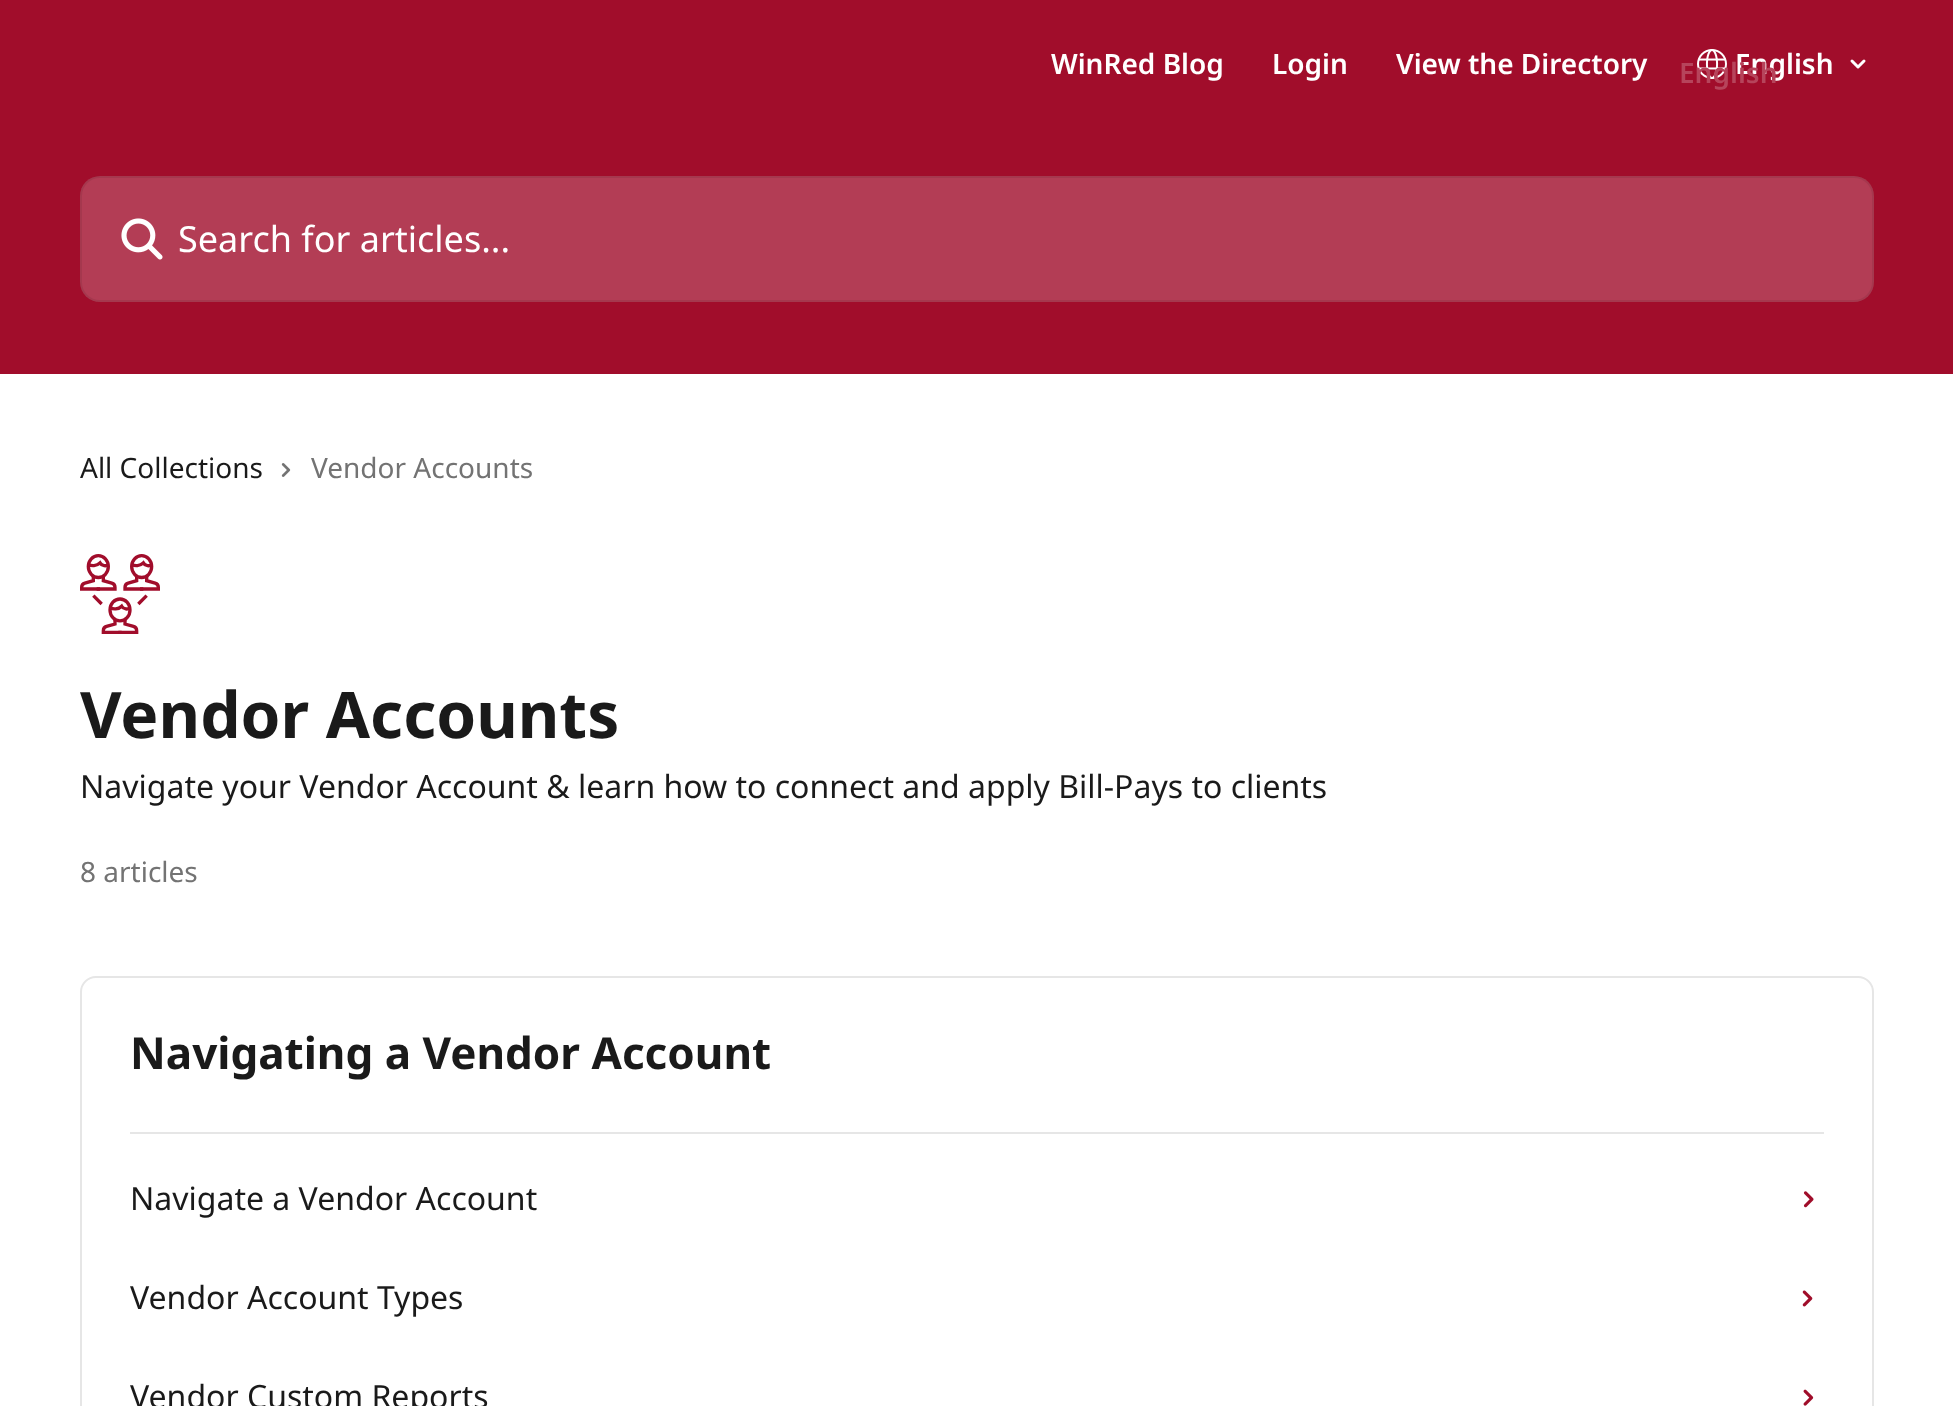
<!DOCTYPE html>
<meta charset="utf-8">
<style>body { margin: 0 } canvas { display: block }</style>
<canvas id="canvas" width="1953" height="1406"></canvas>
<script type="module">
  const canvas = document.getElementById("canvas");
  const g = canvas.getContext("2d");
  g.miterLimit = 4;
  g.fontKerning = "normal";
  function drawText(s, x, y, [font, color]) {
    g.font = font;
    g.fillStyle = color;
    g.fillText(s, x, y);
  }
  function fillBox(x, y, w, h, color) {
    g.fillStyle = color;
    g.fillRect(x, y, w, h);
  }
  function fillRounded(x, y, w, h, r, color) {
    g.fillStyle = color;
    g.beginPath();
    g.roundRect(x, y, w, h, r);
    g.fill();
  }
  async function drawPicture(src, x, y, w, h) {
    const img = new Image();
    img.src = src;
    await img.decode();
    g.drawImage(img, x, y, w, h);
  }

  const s1 = ["600 28px Noto Sans", "#FFFFFF"];
  const s2 = ["600 28px Noto Sans", "#B6445B"];
  const s3 = ["36px Noto Sans", "#FFFFFF"];
  const s4 = ["28px Noto Sans", "#1A1A1A"];
  const s5 = ["28px Noto Sans", "#737373"];
  const s6 = ["bold 64px Noto Sans", "#1A1A1A"];
  const s7 = ["32px Noto Sans", "#1A1A1A"];
  const s8 = ["bold 44px Noto Sans", "#1A1A1A"];

  fillBox(0, 0, 1953, 1406, "#FFFFFF");
  fillBox(0, 0, 1953, 374, "#A10D2B");
  drawText("WinRed Blog", 1051, 74, s1);
  drawText("Login", 1272, 74, s1);
  drawText("View the Directory", 1396, 74, s1);
  await drawPicture("pic1.png", 1697, 49, 30, 30);
  drawText("English", 1735, 74, s1);
  drawText("English", 1679, 83, s2);
  g.beginPath();
  g.moveTo(1852, 61);
  g.lineTo(1858, 67);
  g.lineTo(1864, 61);
  g.strokeStyle = "#FFFFFF";
  g.lineWidth = 3;
  g.lineCap = "round";
  g.lineJoin = "round";
  g.stroke();
  fillRounded(80, 176, 1794, 126, 20, "rgba(255, 255, 255, 0.2)");
  g.beginPath();
  g.roundRect(81, 177, 1792, 124, 19);
  g.strokeStyle = "rgba(0, 0, 0, 0.08)";
  g.lineWidth = 2;
  g.lineJoin = "miter";
  g.stroke();
  await drawPicture("pic2.png", 121, 218, 42, 42);
  drawText("Search for articles...", 178, 252, s3);
  drawText("All Collections", 80, 478, s4);
  await drawPicture("pic3.png", 281, 463, 10, 14);
  drawText("Vendor Accounts", 311, 478, s5);
  await drawPicture("pic4.png", 80, 554, 80, 80);
  drawText("Vendor Accounts", 80, 738, s6);
  drawText("Navigate your Vendor Account & learn how to connect and apply Bill-Pays to clients", 80, 798, s7);
  drawText("8 articles", 80, 882, s5);
  g.beginPath();
  g.roundRect(81, 977, 1792, 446, 15);
  g.strokeStyle = "#E6E6E6";
  g.stroke();
  drawText("Navigating a Vendor Account", 130, 1069, s8);
  fillBox(130, 1132, 1694, 2, "#E6E6E6");
  drawText("Navigate a Vendor Account", 130, 1210, s7);
  await drawPicture("pic5.png", 1803, 1191, 11, 17);
  drawText("Vendor Account Types", 130, 1309, s7);
  await drawPicture("pic6.png", 1802, 1290, 11, 17);
  drawText("Vendor Custom Reports", 130, 1408, s7);
  await drawPicture("pic7.png", 1803, 1389, 11, 17);
</script>
